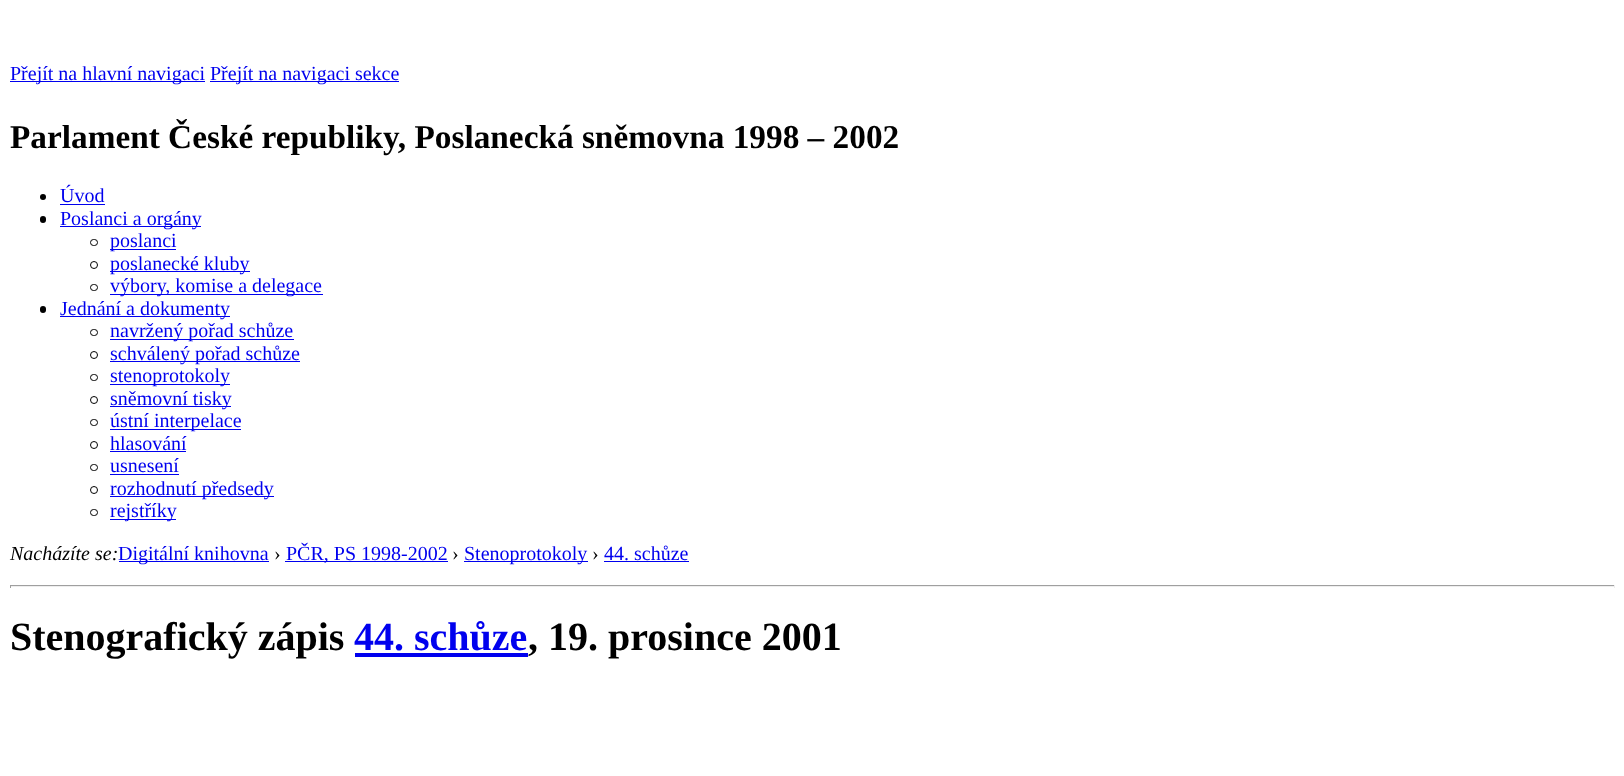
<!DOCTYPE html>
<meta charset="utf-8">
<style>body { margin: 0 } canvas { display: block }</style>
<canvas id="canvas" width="1624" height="776"></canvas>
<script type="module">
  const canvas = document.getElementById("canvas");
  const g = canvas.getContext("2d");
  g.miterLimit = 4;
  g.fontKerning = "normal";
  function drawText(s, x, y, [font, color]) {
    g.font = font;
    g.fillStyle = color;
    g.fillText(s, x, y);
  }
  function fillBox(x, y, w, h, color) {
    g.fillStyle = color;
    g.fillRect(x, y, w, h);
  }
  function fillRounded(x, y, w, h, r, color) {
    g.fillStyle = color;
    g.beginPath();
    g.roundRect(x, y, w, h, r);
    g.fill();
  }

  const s1 = ["20px Liberation Serif", "#0000EE"];
  const s2 = ["bold 33.3px Liberation Serif", "#000000"];
  const s3 = ["italic 20px Liberation Serif", "#000000"];
  const s4 = ["20px Liberation Serif", "#000000"];
  const s5 = ["bold 40px Liberation Serif", "#000000"];
  const s6 = ["bold 40px Liberation Serif", "#0000EE"];

  fillBox(0, 0, 1624, 776, "#FFFFFF");
  fillBox(10, 81, 195, 1, "#0000EE");
  drawText("Přejít na hlavní navigaci", 10, 80, s1);
  fillBox(210, 81, 189, 1, "#0000EE");
  drawText("Přejít na navigaci sekce", 210, 80, s1);
  drawText("Parlament České republiky, Poslanecká sněmovna 1998 – 2002", 10, 148, s2);
  g.beginPath();
  g.arc(43, 197, 3, 0, Math.PI * 2);
  g.fill();
  drawText("Úvod", 60, 202, s1);
  fillBox(60, 204, 45, 1, "#0000EE");
  fillRounded(40, 216, 6, 7, 3, "#000000");
  fillBox(60, 226, 141, 1, "#0000EE");
  drawText("Poslanci a orgány", 60, 225, s1);
  g.beginPath();
  g.roundRect(90.5, 239.5, 7, 6, 3);
  g.strokeStyle = "#000000";
  g.stroke();
  fillBox(110, 249, 66, 1, "#0000EE");
  drawText("poslanci", 110, 247, s1);
  g.beginPath();
  g.arc(94, 265, 3.5, 0, Math.PI * 2);
  g.stroke();
  fillBox(110, 271, 140, 1, "#0000EE");
  drawText("poslanecké kluby", 110, 270, s1);
  g.beginPath();
  g.roundRect(90.5, 284.5, 7, 6, 3);
  g.stroke();
  fillBox(110, 294, 213, 1, "#0000EE");
  drawText("výbory, komise a delegace", 110, 292, s1);
  fillRounded(40, 306, 6, 7, 3, "#000000");
  fillBox(60, 316, 170, 1, "#0000EE");
  drawText("Jednání a dokumenty", 60, 315, s1);
  g.beginPath();
  g.roundRect(90.5, 329.5, 7, 6, 3);
  g.stroke();
  fillBox(110, 339, 184, 1, "#0000EE");
  drawText("navržený pořad schůze", 110, 337, s1);
  g.beginPath();
  g.arc(94, 355, 3.5, 0, Math.PI * 2);
  g.stroke();
  fillBox(110, 361, 190, 1, "#0000EE");
  drawText("schválený pořad schůze", 110, 360, s1);
  g.beginPath();
  g.roundRect(90.5, 374.5, 7, 6, 3);
  g.stroke();
  fillBox(110, 384, 120, 1, "#0000EE");
  drawText("stenoprotokoly", 110, 382, s1);
  g.beginPath();
  g.arc(94, 400, 3.5, 0, Math.PI * 2);
  g.stroke();
  fillBox(110, 406, 121, 1, "#0000EE");
  drawText("sněmovní tisky", 110, 405, s1);
  g.beginPath();
  g.roundRect(90.5, 419.5, 7, 6, 3);
  g.stroke();
  fillBox(110, 429, 131, 1, "#0000EE");
  drawText("ústní interpelace", 110, 427, s1);
  g.beginPath();
  g.arc(94, 445, 3.5, 0, Math.PI * 2);
  g.stroke();
  drawText("hlasování", 110, 450, s1);
  fillBox(110, 451, 76, 1, "#0000EE");
  g.beginPath();
  g.roundRect(90.5, 464.5, 7, 6, 3);
  g.stroke();
  drawText("usnesení", 110, 472, s1);
  fillBox(110, 474, 69, 1, "#0000EE");
  g.beginPath();
  g.arc(94, 490, 3.5, 0, Math.PI * 2);
  g.stroke();
  fillBox(110, 496, 164, 1, "#0000EE");
  drawText("rozhodnutí předsedy", 110, 495, s1);
  g.beginPath();
  g.roundRect(90.5, 509.5, 7, 6, 3);
  g.stroke();
  fillBox(110, 519, 66, 1, "#0000EE");
  drawText("rejstříky", 110, 517, s1);
  drawText("Nacházíte se:", 10, 560, s3);
  fillBox(119, 561, 150, 1, "#0000EE");
  drawText("Digitální knihovna", 118, 560, s1);
  drawText("›", 274, 560, s4);
  fillBox(285, 561, 163, 1, "#0000EE");
  drawText("PČR, PS 1998-2002", 286, 560, s1);
  drawText("›", 452, 560, s4);
  fillBox(464, 561, 124, 1, "#0000EE");
  drawText("Stenoprotokoly", 464, 560, s1);
  drawText("›", 592, 560, s4);
  drawText("44. schůze", 604, 560, s1);
  fillBox(604, 561, 85, 1, "#0000EE");
  fillBox(10, 585, 1605, 1, "#9F9F9F");
  fillBox(1614, 585, 1, 3, "#EEEEEE");
  fillBox(10, 586, 1605, 1, "#EEEEEE");
  fillBox(10, 585, 1, 3, "#9F9F9F");
  drawText("Stenografický zápis", 10, 650, s5);
  drawText("44. schůze", 354, 650, s6);
  fillBox(355, 653, 173, 4, "#0000EE");
  drawText(", 19. prosince 2001", 528, 650, s5);
</script>
